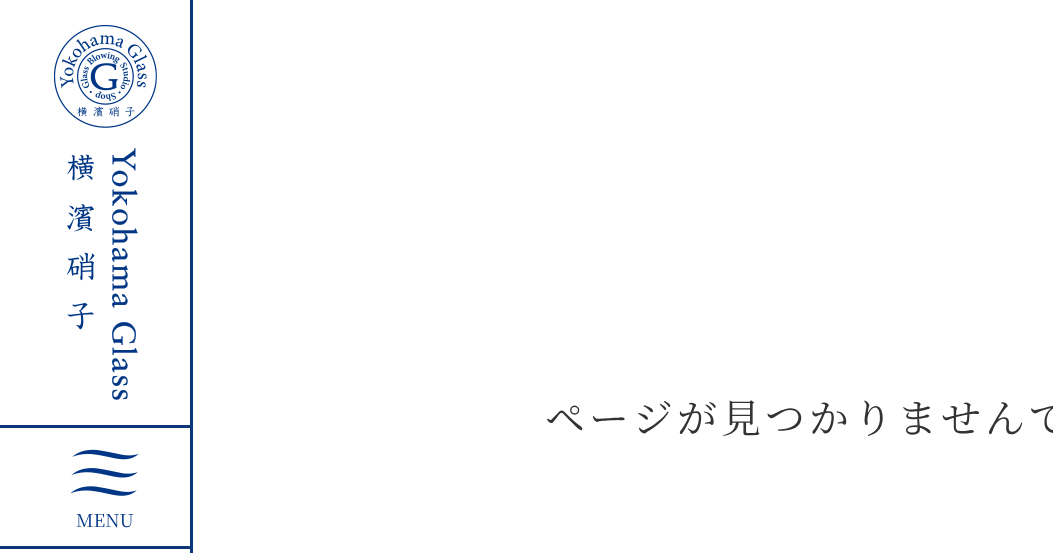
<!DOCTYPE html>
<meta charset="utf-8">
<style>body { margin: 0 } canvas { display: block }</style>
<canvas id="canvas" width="1053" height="553"></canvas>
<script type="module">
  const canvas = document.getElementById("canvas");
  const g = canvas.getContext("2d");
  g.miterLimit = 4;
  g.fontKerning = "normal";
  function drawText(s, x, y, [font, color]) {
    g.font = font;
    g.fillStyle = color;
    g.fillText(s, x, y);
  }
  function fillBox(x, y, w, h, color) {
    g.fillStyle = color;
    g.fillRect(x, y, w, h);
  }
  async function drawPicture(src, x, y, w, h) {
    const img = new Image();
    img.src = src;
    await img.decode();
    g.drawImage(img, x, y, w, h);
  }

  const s1 = ["200 40px Noto Serif JP", "#333333"];
  const s2 = ["200 18px Noto Serif JP", "#003685"];

  fillBox(0, 0, 1053, 553, "#FFFFFF");
  g.letterSpacing = "4px";
  drawText("ページが見つかりませんで", 545, 433, s1);
  fillBox(190, 0, 3, 553, "#0D367A");
  fillBox(0, 425, 190, 3, "#0D367A");
  await drawPicture("pic1.png", 54, 25, 103, 375);
  await drawPicture("pic2.png", 70, 449, 69, 47);
  g.letterSpacing = "0px";
  drawText("MENU", 76, 527, s2);
  fillBox(0, 546, 190, 3, "#0D367A");
</script>
